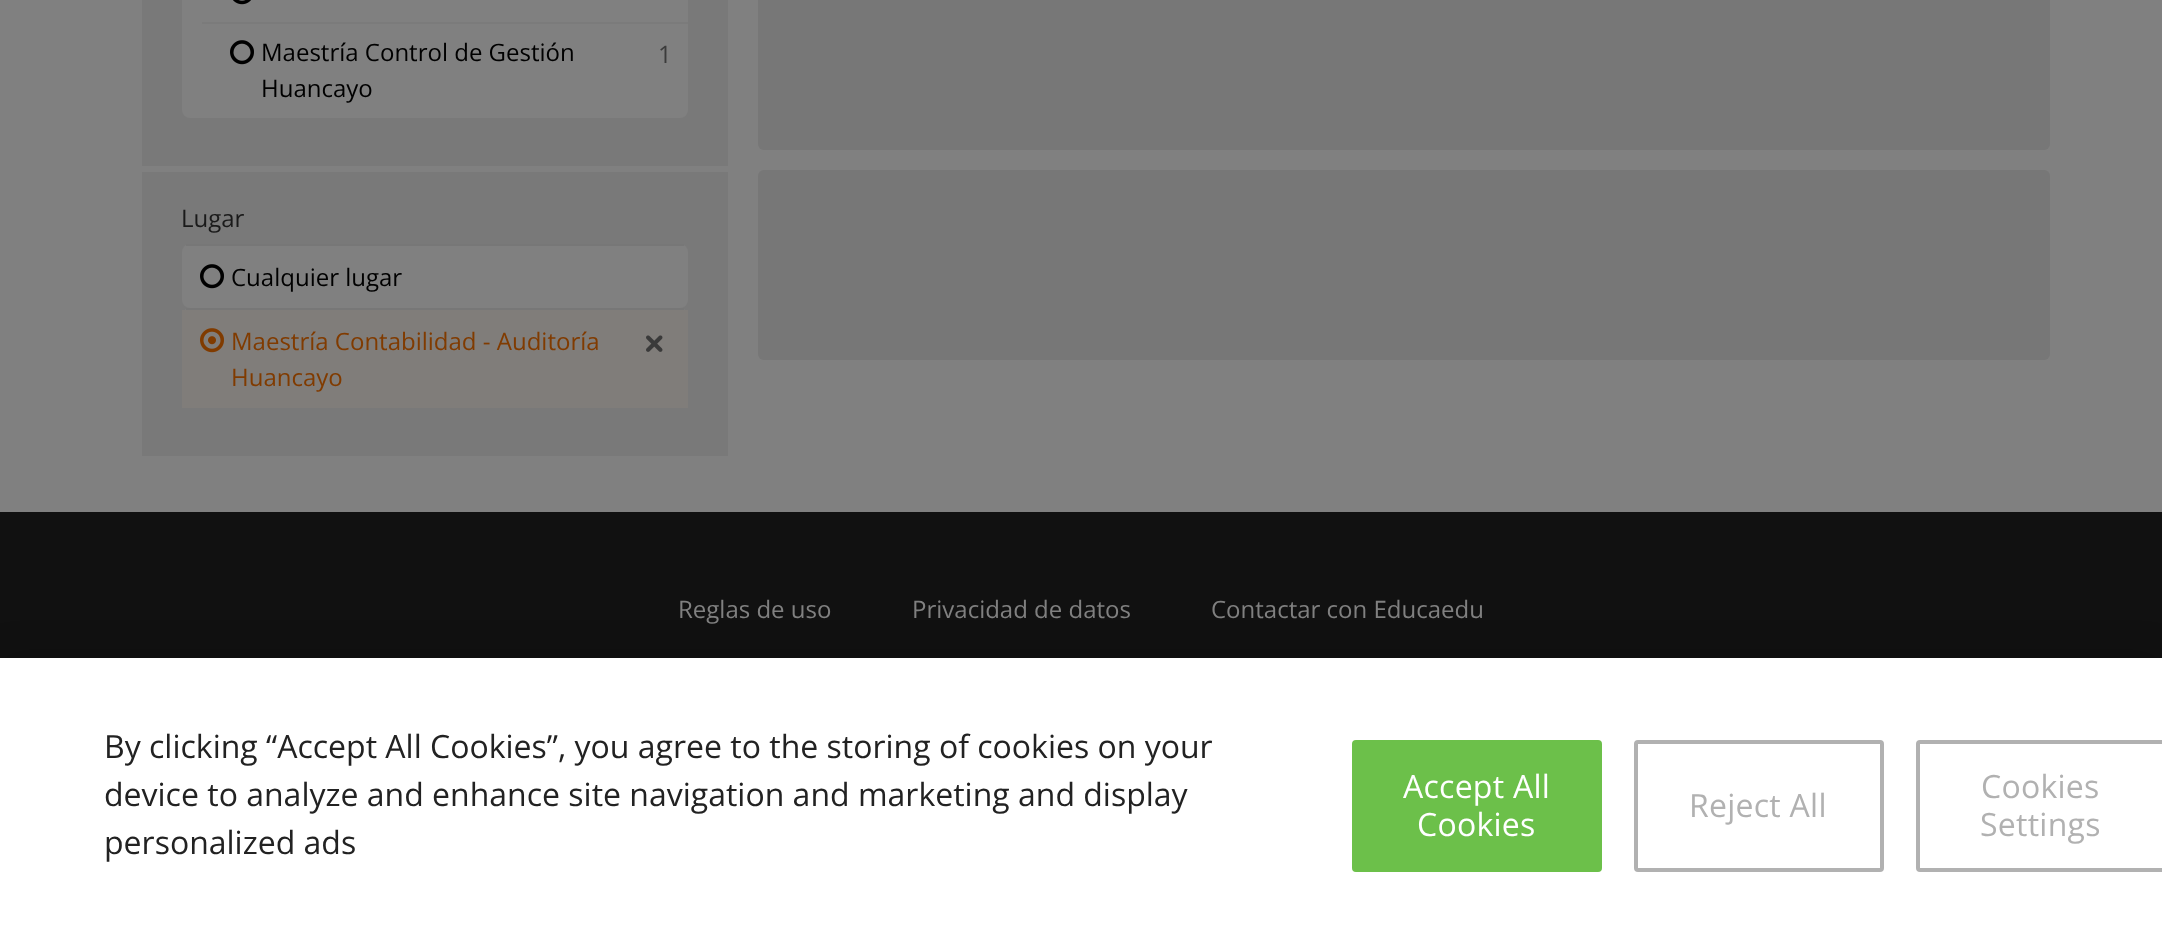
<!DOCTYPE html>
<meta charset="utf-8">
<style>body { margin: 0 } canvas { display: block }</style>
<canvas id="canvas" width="2162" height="929"></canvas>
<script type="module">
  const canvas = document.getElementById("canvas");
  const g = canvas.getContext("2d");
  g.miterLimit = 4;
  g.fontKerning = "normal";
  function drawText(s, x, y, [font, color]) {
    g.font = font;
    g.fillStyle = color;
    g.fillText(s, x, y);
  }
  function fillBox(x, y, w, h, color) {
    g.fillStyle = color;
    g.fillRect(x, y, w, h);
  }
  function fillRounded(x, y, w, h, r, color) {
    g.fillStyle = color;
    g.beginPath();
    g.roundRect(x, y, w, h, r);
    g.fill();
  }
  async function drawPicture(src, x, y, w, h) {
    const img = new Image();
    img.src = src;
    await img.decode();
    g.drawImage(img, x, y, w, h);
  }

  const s1 = ["24px Open Sans", "#000000"];
  const s2 = ["24px Open Sans", "#3B3B3B"];
  const s3 = ["24px Open Sans", "#1A1A1A"];
  const s4 = ["24px Open Sans", "#803B00"];
  const s5 = ["24px Open Sans", "#808080"];
  const s6 = ["32px Open Sans", "#222222"];
  const s7 = ["32px Open Sans", "#FFFFFF"];
  const s8 = ["32px Open Sans", "#B1B1B1"];

  fillBox(0, 0, 2162, 929, "#808080");
  fillBox(142, 0, 586, 456, "#797979");
  fillBox(142, 166, 586, 6, "#808080");
  fillRounded(182, -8, 506, 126, 8, "#808080");
  await drawPicture("pic1.png", 233, 0, 18, 5);
  fillBox(202, 22, 486, 2, "#7B7B7B");
  await drawPicture("pic2.png", 230, 40, 24, 25);
  drawText("Maestría Control de Gestión", 261, 61, s1);
  drawText("Huancayo", 261, 97, s1);
  drawText("1", 658, 63, s2);
  drawText("Lugar", 181, 227, s3);
  fillRounded(182, 244, 506, 64, 8, "#808080");
  fillBox(186, 244, 498, 2, "#777777");
  await drawPicture("pic2.png", 200, 264, 24, 25);
  drawText("Cualquier lugar", 231, 286, s1);
  fillRounded(182, 308, 506, 100, 8, "#808080");
  fillBox(186, 308, 498, 2, "#777777");
  fillBox(182, 310, 506, 98, "#807D7A");
  await drawPicture("pic3.png", 200, 328, 24, 25);
  drawText("Maestría Contabilidad - Auditoría", 231, 350, s4);
  drawText("Huancayo", 231, 386, s4);
  await drawPicture("pic4.png", 646, 335, 17, 17);
  fillRounded(758, -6, 1292, 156, 6, "#777777");
  fillRounded(758, 170, 1292, 190, 6, "#777777");
  fillBox(0, 512, 2162, 146, "#111111");
  drawText("Reglas de uso", 678, 618, s5);
  drawText("Privacidad de datos", 912, 618, s5);
  drawText("Contactar con Educaedu", 1211, 618, s5);
  g.fillStyle = "rgba(0, 0, 0, 0.2)";
  g.filter = "blur(18px)";
  g.beginPath();
  g.rect(0, 658, 2162, 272);
  g.fill();
  g.filter = "none";
  fillBox(0, 658, 2162, 271, "#FFFFFF");
  drawText("By clicking “Accept All Cookies”, you agree to the storing of cookies on your", 104, 758, s6);
  drawText("device to analyze and enhance site navigation and marketing and display", 104, 806, s6);
  drawText("personalized ads", 104, 854, s6);
  g.fillStyle = "#6CC04A";
  g.beginPath();
  g.roundRect(1353, 741, 248, 130, 3);
  g.fill();
  g.strokeStyle = "#6CC04A";
  g.lineWidth = 2;
  g.stroke();
  g.letterSpacing = "0.25px";
  drawText("Accept All", 1403, 798, s7);
  drawText("Cookies", 1417, 836, s7);
  g.beginPath();
  g.roundRect(1636, 742, 246, 128, 2);
  g.strokeStyle = "#B1B1B1";
  g.lineWidth = 4;
  g.stroke();
  drawText("Reject All", 1689, 817, s8);
  g.beginPath();
  g.roundRect(1918, 742, 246, 128, 2);
  g.stroke();
  drawText("Cookies", 1981, 798, s8);
  drawText("Settings", 1980, 836, s8);
</script>
